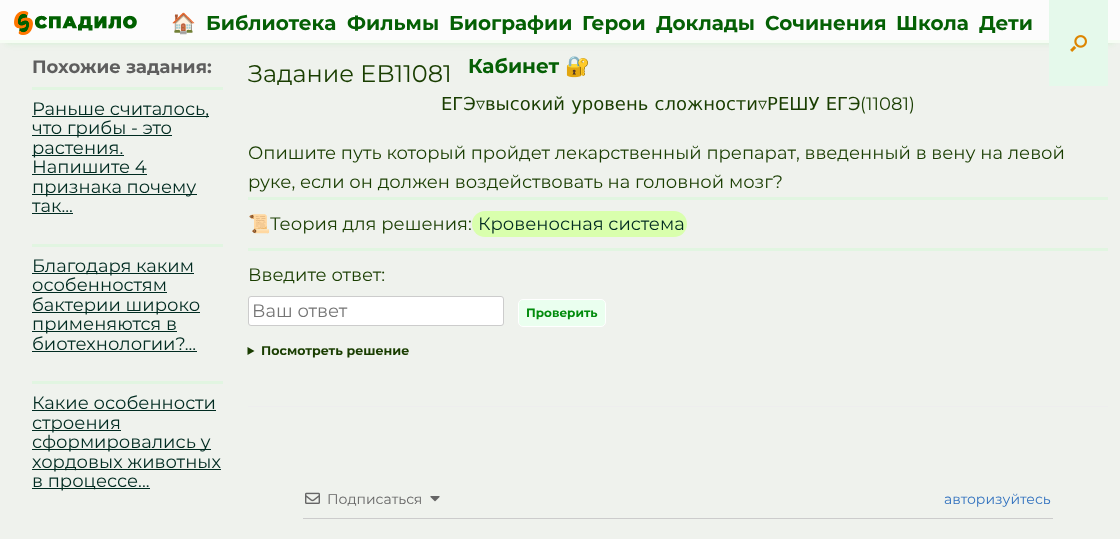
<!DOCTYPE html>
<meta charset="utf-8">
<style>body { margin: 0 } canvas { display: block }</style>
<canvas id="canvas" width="1120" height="539"></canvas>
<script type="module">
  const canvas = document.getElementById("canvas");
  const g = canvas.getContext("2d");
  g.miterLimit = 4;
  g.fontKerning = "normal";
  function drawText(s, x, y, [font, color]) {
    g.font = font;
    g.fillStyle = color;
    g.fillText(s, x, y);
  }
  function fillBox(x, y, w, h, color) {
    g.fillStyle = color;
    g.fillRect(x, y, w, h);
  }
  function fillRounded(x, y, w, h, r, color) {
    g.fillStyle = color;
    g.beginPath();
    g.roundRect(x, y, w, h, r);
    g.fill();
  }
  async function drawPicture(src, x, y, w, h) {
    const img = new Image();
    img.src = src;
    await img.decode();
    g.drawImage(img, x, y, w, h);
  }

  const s1 = ["bold 20px Noto Color Emoji", "#056005"];
  const s2 = ["bold 20px Montserrat", "#056005"];
  const s3 = ["bold 18px Montserrat", "#5E5E5E"];
  const s4 = ["18px Montserrat", "#002B21"];
  const s5 = ["24px Montserrat", "#193D00"];
  const s6 = ["18px DejaVu Sans", "#193D00"];
  const s7 = ["18px Montserrat", "#193D00"];
  const s8 = ["18px Noto Color Emoji", "#193D00"];
  const s9 = ["18px Montserrat", "#757575"];
  const s10 = ["bold 12px Montserrat", "#018C0C"];
  const s11 = ["bold 12.6px Montserrat", "#193D00"];
  const s12 = ["14px Montserrat", "#666666"];
  const s13 = ["14px Montserrat", "#3272BF"];

  fillBox(0, 0, 1120, 539, "#EFF2ED");
  g.fillStyle = "rgba(177, 234, 177, 0.5)";
  g.filter = "blur(3px)";
  g.beginPath();
  g.rect(6, 12, 1108, 31);
  g.fill();
  g.filter = "none";
  fillBox(0, 0, 1120, 40, "#FCFCFC");
  fillBox(0, 40, 1120, 3, "#F6FDF4");
  await drawPicture("pic1.png", 14, 11, 123, 24);
  drawText("🏠", 171, 30, s1);
  drawText("Библиотека", 206, 30, s2);
  drawText("Фильмы", 347, 30, s2);
  drawText("Биографии", 449, 30, s2);
  drawText("Герои", 582, 30, s2);
  drawText("Доклады", 656, 30, s2);
  drawText("Сочинения", 765, 30, s2);
  drawText("Школа", 896, 30, s2);
  drawText("Дети", 979, 30, s2);
  drawText("Кабинет", 468, 73, s2);
  drawText("🔐", 565, 73, s1);
  fillBox(1049, 0, 59, 86, "#E5F9EB");
  await drawPicture("pic2.png", 1070, 35, 17, 17);
  drawText("Похожие задания:", 32, 73, s3);
  fillBox(32, 87, 191, 3, "#E1F5E1");
  fillBox(32, 116, 177, 1, "#002B21");
  drawText("Раньше считалось,", 32, 115, s4);
  fillBox(32, 135, 140, 1, "#002B21");
  drawText("что грибы - это", 32, 134, s4);
  fillBox(32, 155, 92, 1, "#002B21");
  drawText("растения.", 32, 154, s4);
  drawText("Напишите 4", 32, 173, s4);
  fillBox(32, 174, 115, 1, "#002B21");
  fillBox(32, 194, 165, 1, "#002B21");
  drawText("признака почему", 32, 193, s4);
  drawText("так...", 32, 212, s4);
  fillBox(32, 213, 41, 1, "#002B21");
  fillBox(32, 244, 191, 3, "#E1F5E1");
  fillBox(32, 273, 162, 1, "#002B21");
  drawText("Благодаря каким", 32, 272, s4);
  drawText("особенностям", 32, 291, s4);
  fillBox(32, 292, 135, 1, "#002B21");
  fillBox(32, 312, 168, 1, "#002B21");
  drawText("бактерии широко", 32, 311, s4);
  fillBox(32, 331, 145, 1, "#002B21");
  drawText("применяются в", 32, 330, s4);
  drawText("биотехнологии?...", 32, 350, s4);
  fillBox(32, 351, 165, 1, "#002B21");
  fillBox(32, 381, 191, 3, "#E1F5E1");
  drawText("Какие особенности", 32, 409, s4);
  fillBox(32, 410, 184, 1, "#002B21");
  fillBox(32, 430, 89, 1, "#002B21");
  drawText("строения", 32, 429, s4);
  fillBox(32, 449, 179, 1, "#002B21");
  drawText("сформировались у", 32, 448, s4);
  fillBox(32, 469, 189, 1, "#002B21");
  drawText("хордовых животных", 32, 468, s4);
  fillBox(32, 488, 118, 1, "#002B21");
  drawText("в процессе...", 32, 487, s4);
  fillBox(248, 406, 860, 1, "#EEEEEE");
  drawText("Задание EB11081", 248, 82, s5);
  g.wordSpacing = "0.5px";
  drawText("ЕГЭ▿высокий уровень сложности▿РЕШУ ЕГЭ", 441, 110, s6);
  g.wordSpacing = "0px";
  drawText("(11081)", 860, 110, s7);
  drawText("Опишите путь который пройдет лекарственный препарат, введенный в вену на левой", 248, 159, s7);
  drawText("руке, если он должен воздействовать на головной мозг?", 248, 188, s7);
  fillBox(248, 197, 860, 3, "#E1F5E1");
  drawText("📜", 248, 230, s8);
  drawText("Теория для решения:", 270, 230, s7);
  fillRounded(472, 211, 215, 26, 13, "#D9FFAD");
  drawText("Кровеносная система", 478, 230, s4);
  fillBox(248, 248, 860, 3, "#E1F5E1");
  drawText("Введите ответ:", 248, 281, s7);
  g.fillStyle = "#FFFFFF";
  g.beginPath();
  g.roundRect(248.5, 296.5, 255, 29, 2.5);
  g.fill();
  g.strokeStyle = "#CCCCCC";
  g.stroke();
  drawText("Ваш ответ", 252, 317, s9);
  g.fillStyle = "#EAFFEF";
  g.beginPath();
  g.roundRect(518.5, 299.5, 87, 27, 4.5);
  g.fill();
  g.strokeStyle = "#FFFFFF";
  g.stroke();
  drawText("Проверить", 526, 317, s10);
  g.fillStyle = "#193D00";
  g.beginPath();
  g.moveTo(247.5, 347);
  g.lineTo(254.5, 351);
  g.lineTo(247.5, 355);
  g.closePath();
  g.fill();
  drawText("Посмотреть решение", 261, 355, s11);
  fillBox(303, 518, 750, 1, "#CCCCCC");
  await drawPicture("pic3.png", 305, 492, 15, 12);
  drawText("Подписаться", 327, 504, s12);
  await drawPicture("pic4.png", 430, 496, 10, 6);
  drawText("авторизуйтесь", 944, 504, s13);
</script>
